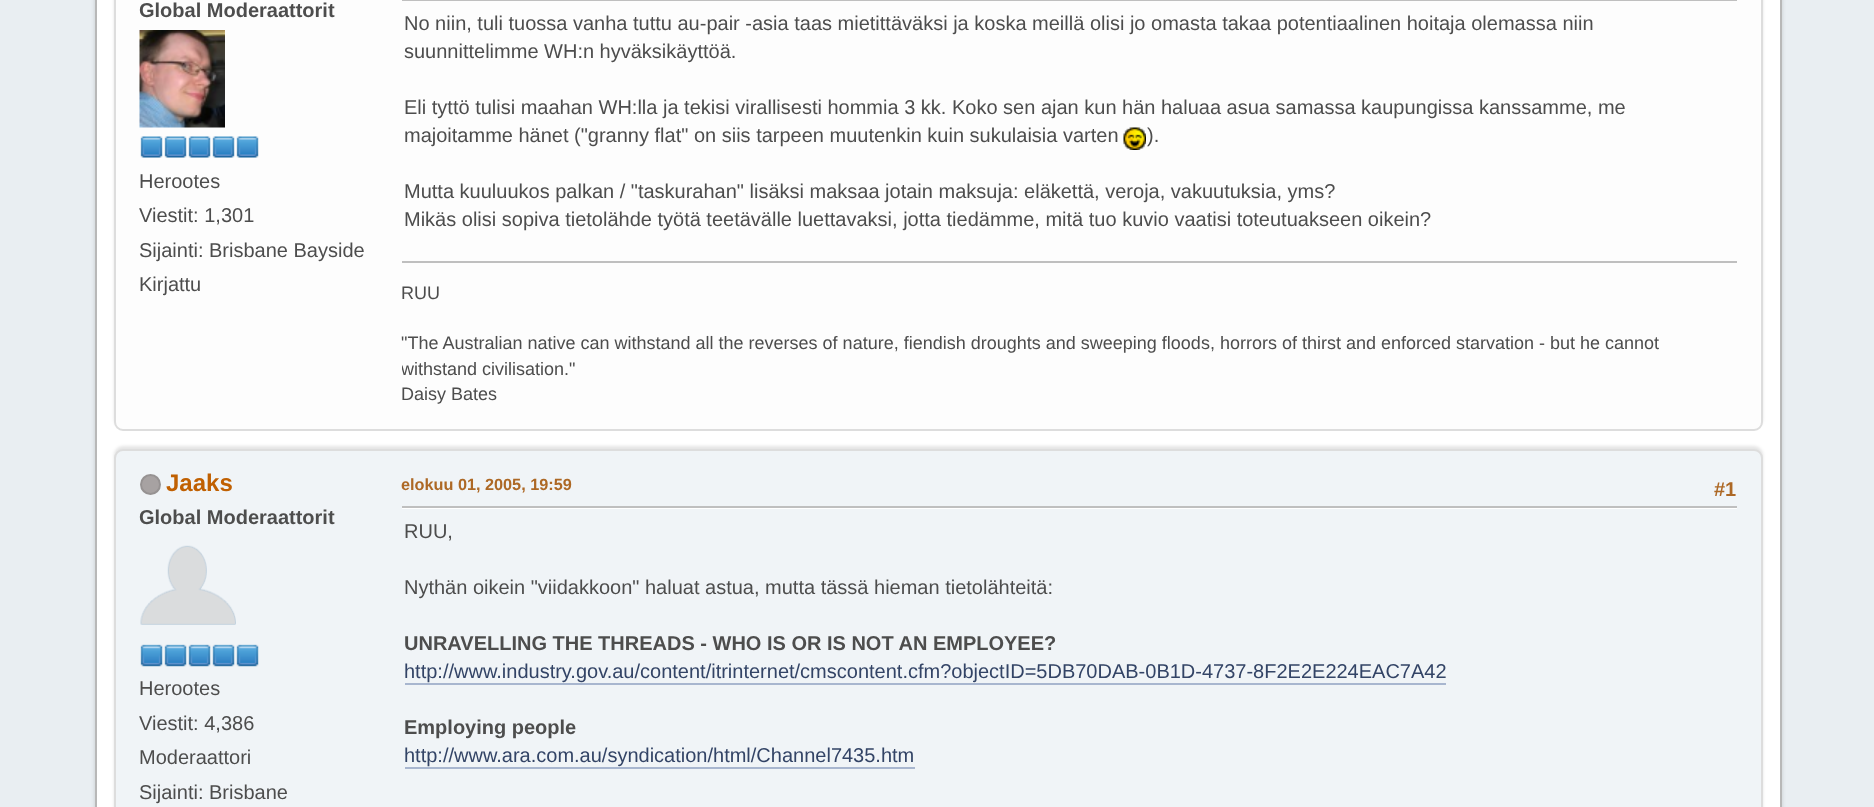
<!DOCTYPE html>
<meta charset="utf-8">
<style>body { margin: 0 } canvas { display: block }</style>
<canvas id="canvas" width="1874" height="807"></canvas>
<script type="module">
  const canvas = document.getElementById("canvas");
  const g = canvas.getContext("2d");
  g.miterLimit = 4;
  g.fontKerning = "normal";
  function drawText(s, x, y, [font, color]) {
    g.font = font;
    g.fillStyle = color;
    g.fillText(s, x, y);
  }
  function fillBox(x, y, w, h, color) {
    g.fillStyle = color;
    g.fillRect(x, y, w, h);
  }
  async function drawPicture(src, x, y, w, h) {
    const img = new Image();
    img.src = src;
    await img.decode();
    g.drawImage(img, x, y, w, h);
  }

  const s1 = ["bold 20px Liberation Sans", "#4D4D4D"];
  const s2 = ["20px Liberation Sans", "#4D4D4D"];
  const s3 = ["18px Liberation Sans", "#4D4D4D"];
  const s4 = ["bold 24px Liberation Sans", "#C06002"];
  const s5 = ["bold 16.25px Liberation Sans", "#AD6825"];
  const s6 = ["bold 20px Liberation Sans", "#AD6825"];
  const s7 = ["20px Liberation Sans", "#334466"];

  fillBox(0, 0, 1874, 807, "#E9EEF2");
  g.fillStyle = "rgba(0, 0, 0, 0.14)";
  g.filter = "blur(2px)";
  g.beginPath();
  g.roundRect(95, -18, 1687, 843, 12);
  g.fill();
  g.filter = "none";
  g.fillStyle = "#FFFFFF";
  g.beginPath();
  g.rect(96, -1, 1685, 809);
  g.fill();
  g.strokeStyle = "#B8B8B8";
  g.lineWidth = 2;
  g.stroke();
  g.fillStyle = "rgba(0, 0, 0, 0.1)";
  g.filter = "blur(1.5px)";
  g.beginPath();
  g.roundRect(114, -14, 1649, 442, 9);
  g.fill();
  g.filter = "none";
  g.fillStyle = "#FDFDFD";
  g.beginPath();
  g.roundRect(115, -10, 1647, 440, 8);
  g.fill();
  g.strokeStyle = "#DDDDDD";
  g.stroke();
  drawText("Global Moderaattorit", 139, 17, s1);
  await drawPicture("pic1.png", 139, 30, 86, 98);
  await drawPicture("pic2.png", 140, 136, 23, 22);
  await drawPicture("pic2.png", 164, 136, 23, 22);
  await drawPicture("pic2.png", 188, 136, 23, 22);
  await drawPicture("pic2.png", 212, 136, 23, 22);
  await drawPicture("pic2.png", 236, 136, 23, 22);
  drawText("Herootes", 139, 188, s2);
  drawText("Viestit: 1,301", 139, 222, s2);
  drawText("Sijainti: Brisbane Bayside", 139, 257, s2);
  drawText("Kirjattu", 139, 291, s2);
  fillBox(402, 0, 1335, 1, "#BFBFBF");
  drawText("No niin, tuli tuossa vanha tuttu au-pair -asia taas mietittäväksi ja koska meillä olisi jo omasta takaa potentiaalinen hoitaja olemassa niin", 404, 30, s2);
  drawText("suunnittelimme WH:n hyväksikäyttöä.", 404, 58, s2);
  drawText("Eli tyttö tulisi maahan WH:lla ja tekisi virallisesti hommia 3 kk. Koko sen ajan kun hän haluaa asua samassa kaupungissa kanssamme, me", 404, 114, s2);
  drawText("majoitamme hänet (\"granny flat\" on siis tarpeen muutenkin kuin sukulaisia varten", 404, 142, s2);
  await drawPicture("pic3.png", 1123, 127, 23, 23);
  drawText(").", 1147, 142, s2);
  drawText("Mutta kuuluukos palkan / \"taskurahan\" lisäksi maksaa jotain maksuja: eläkettä, veroja, vakuutuksia, yms?", 404, 198, s2);
  drawText("Mikäs olisi sopiva tietolähde työtä teetävälle luettavaksi, jotta tiedämme, mitä tuo kuvio vaatisi toteutuakseen oikein?", 404, 226, s2);
  fillBox(402, 261, 1335, 2, "#BFBFBF");
  drawText("RUU", 401, 299, s3);
  drawText("\"The Australian native can withstand all the reverses of nature, fiendish droughts and sweeping floods, horrors of thirst and enforced starvation - but he cannot", 401, 349, s3);
  g.save();
  g.beginPath();
  g.rect(402, 263, 1335, 148);
  g.clip();
  drawText("withstand civilisation.\"", 401, 375, s3);
  g.restore();
  drawText("Daisy Bates", 401, 400, s3);
  g.fillStyle = "rgba(0, 0, 0, 0.1)";
  g.filter = "blur(1.5px)";
  g.beginPath();
  g.roundRect(114, 446, 1649, 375, 9);
  g.fill();
  g.filter = "none";
  g.fillStyle = "#F0F4F7";
  g.beginPath();
  g.roundRect(115, 450, 1647, 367, 8);
  g.fill();
  g.stroke();
  g.fillStyle = "#A7A2A2";
  g.beginPath();
  g.arc(150.5, 484.5, 9.5, 0, Math.PI * 2);
  g.fill();
  g.strokeStyle = "#969292";
  g.stroke();
  drawText("Jaaks", 166, 491, s4);
  drawText("Global Moderaattorit", 139, 524, s1);
  await drawPicture("pic4.png", 140, 545, 96, 80);
  await drawPicture("pic5.png", 140, 644, 23, 23);
  await drawPicture("pic5.png", 164, 644, 23, 23);
  await drawPicture("pic5.png", 188, 644, 23, 23);
  await drawPicture("pic5.png", 212, 644, 23, 23);
  await drawPicture("pic5.png", 236, 644, 23, 23);
  drawText("Herootes", 139, 695, s2);
  drawText("Viestit: 4,386", 139, 730, s2);
  drawText("Moderaattori", 139, 764, s2);
  drawText("Sijainti: Brisbane", 139, 799, s2);
  drawText("elokuu 01, 2005, 19:59", 401, 490, s5);
  drawText("#1", 1714, 496, s6);
  fillBox(402, 508, 1335, 1, "#FFFFFF");
  fillBox(402, 506, 1335, 2, "#BFBFBF");
  drawText("RUU,", 404, 538, s2);
  drawText("Nythän oikein \"viidakkoon\" haluat astua, mutta tässä hieman tietolähteitä:", 404, 594, s2);
  drawText("UNRAVELLING THE THREADS - WHO IS OR IS NOT AN EMPLOYEE?", 404, 650, s1);
  drawText("http://www.industry.gov.au/content/itrinternet/cmscontent.cfm?objectID=5DB70DAB-0B1D-4737-8F2E2E224EAC7A42", 404, 678, s7);
  fillBox(405, 683, 1041, 2, "#A8B6CF");
  drawText("Employing people", 404, 734, s1);
  drawText("http://www.ara.com.au/syndication/html/Channel7435.htm", 404, 762, s7);
  fillBox(405, 767, 510, 2, "#A8B6CF");
</script>
